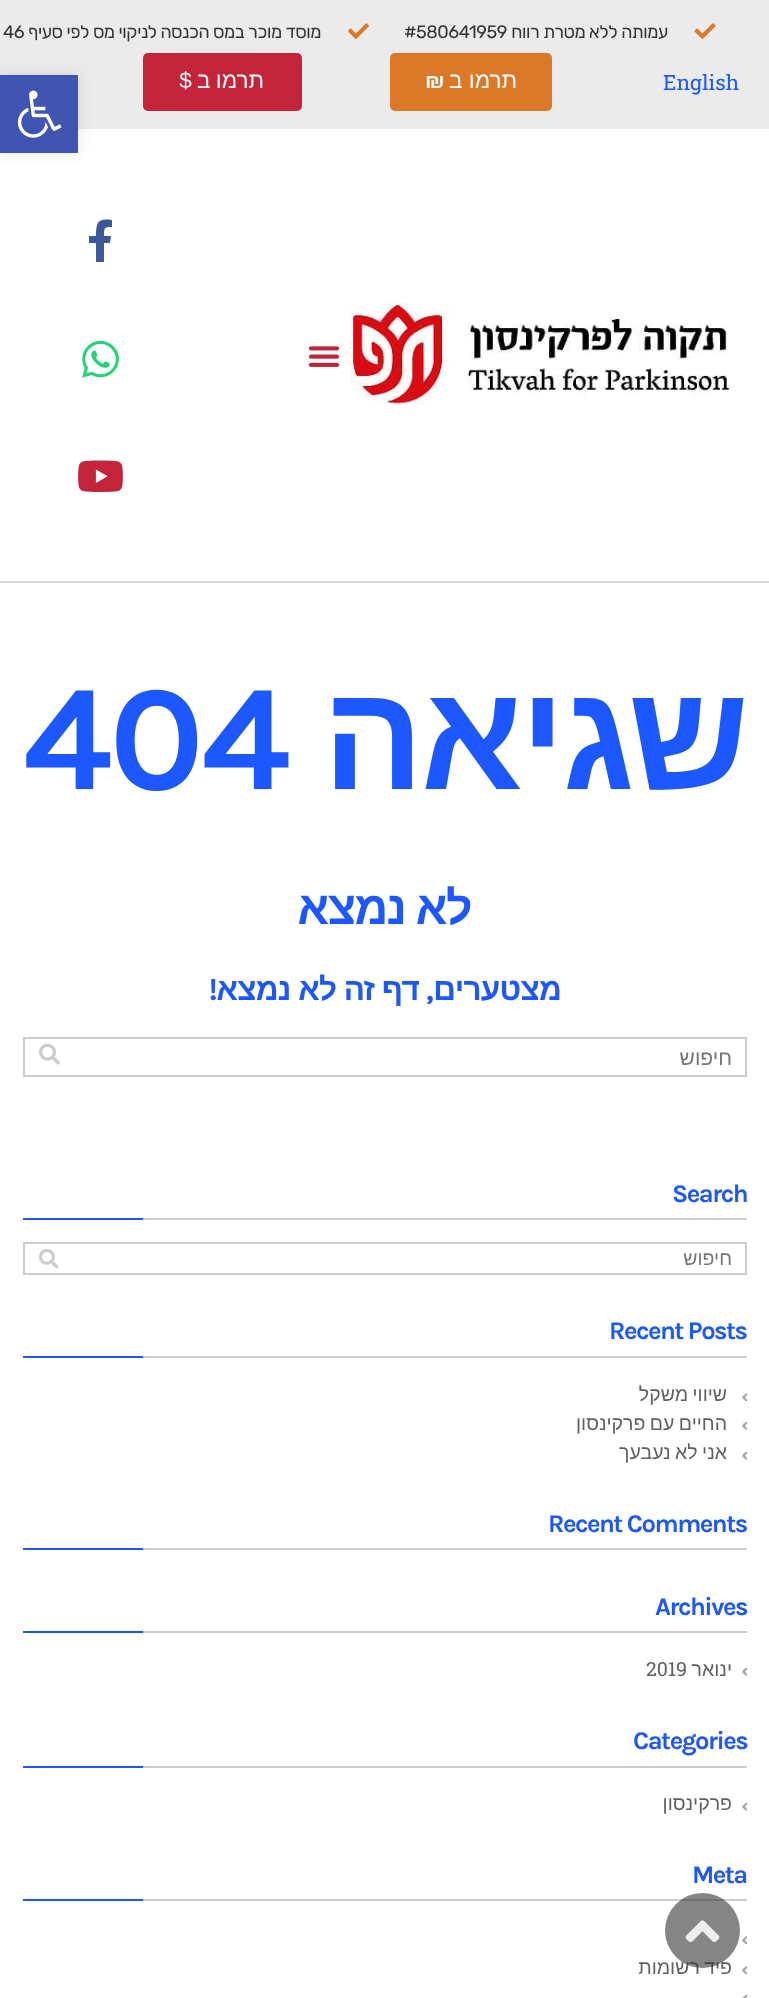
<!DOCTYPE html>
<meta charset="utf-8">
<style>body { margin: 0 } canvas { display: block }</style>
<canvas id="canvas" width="769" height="1998"></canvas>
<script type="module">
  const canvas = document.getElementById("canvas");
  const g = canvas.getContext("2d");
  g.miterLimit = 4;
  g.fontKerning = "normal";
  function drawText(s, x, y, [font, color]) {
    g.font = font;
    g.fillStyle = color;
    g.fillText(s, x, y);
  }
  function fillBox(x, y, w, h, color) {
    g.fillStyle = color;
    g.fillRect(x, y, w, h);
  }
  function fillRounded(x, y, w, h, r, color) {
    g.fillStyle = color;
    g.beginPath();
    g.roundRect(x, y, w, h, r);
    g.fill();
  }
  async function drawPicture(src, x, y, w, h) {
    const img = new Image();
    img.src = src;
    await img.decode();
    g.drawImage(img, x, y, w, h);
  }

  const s1 = ["18px Rubik", "#353535"];
  const s2 = ["21px Roboto Slab", "#1C57FF"];
  const s3 = ["22.5px Liberation Sans", "#FFFFFF"];
  const s4 = ["500 22.5px Roboto", "#FFFFFF"];
  const s5 = ["bold 150px Liberation Sans", "#1C57FF"];
  const s6 = ["bold 150px Karla", "#1C57FF"];
  const s7 = ["bold 46.5px Liberation Sans", "#1C57FF"];
  const s8 = ["bold 31.5px Liberation Sans", "#1C57FF"];
  const s9 = ["bold 31.5px Karla", "#1C57FF"];
  const s10 = ["21px Liberation Sans", "#757575"];
  const s11 = ["bold 25.5px Karla", "#1C57FF"];
  const s12 = ["19.5px Liberation Sans", "#757575"];
  const s13 = ["19.5px Liberation Sans", "#606060"];
  const s14 = ["19.5px Roboto Slab", "#606060"];

  fillBox(0, 0, 769, 1998, "#FFFFFF");
  fillBox(0, 0, 769, 129, "#EBEBEB");
  await drawPicture("pic1.png", 694, 23, 22, 16);
  g.letterSpacing = "-0.45px";
  g.direction = "rtl";
  drawText("עמותה ללא מטרת רווח", 668, 38, s1);
  g.direction = "ltr";
  drawText("#580641959", 404, 38, s1);
  await drawPicture("pic2.png", 348, 23, 21, 16);
  g.direction = "rtl";
  drawText("מוסד מוכר במס הכנסה לניקוי מס לפי סעיף", 321, 38, s1);
  g.direction = "ltr";
  drawText("46", 3, 38, s1);
  g.letterSpacing = "0px";
  drawText("English", 663, 90, s2);
  fillRounded(390, 53, 162, 58, 5, "#DC7928");
  g.direction = "rtl";
  drawText("תרמו ב", 517, 88, s3);
  drawText("₪", 444, 88, s4);
  fillRounded(143, 53, 159, 58, 5, "#C32439");
  g.wordSpacing = "-1px";
  drawText("תרמו ב $", 264, 88, s3);
  fillBox(0, 581, 769, 2, "#D8D8D8");
  await drawPicture("pic3.png", 349, 301, 385, 104);
  await drawPicture("pic4.png", 308, 346, 32, 21);
  g.fillStyle = "#3B5998";
  g.beginPath();
  g.moveTo(110, 243);
  g.lineTo(104, 243);
  g.lineTo(104, 262);
  g.lineTo(96, 262);
  g.lineTo(96, 243);
  g.lineTo(89, 243);
  g.lineTo(89, 236);
  g.lineTo(96, 236);
  g.bezierCurveTo(96, 222, 98, 218, 112, 220);
  g.lineTo(112, 227);
  g.bezierCurveTo(104, 227, 104, 228, 104, 236);
  g.lineTo(111, 236);
  g.closePath();
  g.fill();
  await drawPicture("pic5.png", 82, 340, 37, 38);
  await drawPicture("pic6.png", 78, 460, 45, 32);
  g.letterSpacing = "-3px";
  g.wordSpacing = "0px";
  drawText("שגיאה", 746, 789, s5);
  g.direction = "ltr";
  drawText("404", 23, 789, s6);
  g.letterSpacing = "-1.5px";
  g.wordSpacing = "-1px";
  g.direction = "rtl";
  drawText("לא נמצא", 471, 924, s7);
  g.letterSpacing = "-0.75px";
  g.wordSpacing = "0px";
  drawText("מצטערים", 561, 1000, s8);
  drawText(",", 433, 1000, s9);
  g.wordSpacing = "-0.5px";
  drawText("דף זה לא נמצא", 419, 1000, s8);
  g.wordSpacing = "0px";
  drawText("!", 217, 1000, s9);
  g.strokeStyle = "#CCCCCC";
  g.lineWidth = 2;
  g.strokeRect(24, 1038, 722, 38);
  g.letterSpacing = "0px";
  drawText("חיפוש", 732, 1065, s10);
  await drawPicture("pic7.png", 39, 1043, 21, 22);
  fillBox(143, 1218, 604, 2, "#CCCCCC");
  g.letterSpacing = "-1.5px";
  g.direction = "ltr";
  drawText("Search", 672, 1202, s11);
  fillBox(23, 1218, 120, 2, "#1C57FF");
  g.strokeRect(24, 1243, 722, 31);
  g.letterSpacing = "0px";
  g.direction = "rtl";
  drawText("חיפוש", 732, 1265, s12);
  await drawPicture("pic8.png", 39, 1249, 20, 20);
  fillBox(143, 1356, 604, 2, "#CCCCCC");
  g.letterSpacing = "-1.5px";
  g.direction = "ltr";
  drawText("Recent Posts", 609, 1339, s11);
  fillBox(23, 1356, 120, 2, "#1C57FF");
  await drawPicture("pic9.png", 742, 1393, 5, 8);
  g.letterSpacing = "0px";
  g.wordSpacing = "-1px";
  g.direction = "rtl";
  drawText("שיווי משקל", 727, 1401, s13);
  await drawPicture("pic10.png", 742, 1422, 5, 8);
  drawText("החיים עם פרקינסון", 727, 1430, s13);
  await drawPicture("pic10.png", 742, 1452, 5, 8);
  drawText("אני לא נעבעך", 727, 1459, s13);
  fillBox(143, 1548, 604, 2, "#CCCCCC");
  g.letterSpacing = "-1.5px";
  g.wordSpacing = "0px";
  g.direction = "ltr";
  drawText("Recent Comments", 548, 1532, s11);
  fillBox(23, 1548, 120, 2, "#1C57FF");
  fillBox(143, 1631, 604, 2, "#CCCCCC");
  drawText("Archives", 655, 1615, s11);
  fillBox(23, 1631, 120, 2, "#1C57FF");
  await drawPicture("pic10.png", 742, 1668, 5, 8);
  g.letterSpacing = "0px";
  g.direction = "rtl";
  drawText("ינואר", 732, 1676, s13);
  g.direction = "ltr";
  drawText("2019", 646, 1676, s14);
  fillBox(143, 1766, 604, 2, "#CCCCCC");
  g.letterSpacing = "-1.5px";
  drawText("Categories", 633, 1749, s11);
  fillBox(23, 1766, 120, 2, "#1C57FF");
  await drawPicture("pic10.png", 742, 1803, 5, 8);
  g.letterSpacing = "0px";
  g.direction = "rtl";
  drawText("פרקינסון", 732, 1810, s13);
  fillBox(143, 1899, 604, 2, "#CCCCCC");
  g.letterSpacing = "-1.5px";
  g.direction = "ltr";
  drawText("Meta", 692, 1883, s11);
  fillBox(23, 1899, 120, 2, "#1C57FF");
  await drawPicture("pic9.png", 742, 1936, 5, 8);
  await drawPicture("pic9.png", 742, 1966, 5, 8);
  g.letterSpacing = "0px";
  g.wordSpacing = "-1px";
  g.direction = "rtl";
  drawText("פיד רשומות", 732, 1974, s13);
  await drawPicture("pic11.png", 742, 1995, 5, 3);
  g.fillStyle = "rgba(0, 0, 0, 0.1)";
  g.filter = "blur(7.5px)";
  g.beginPath();
  g.rect(0, 75, 78, 78);
  g.fill();
  g.filter = "none";
  fillBox(0, 75, 78, 78, "#4054B2");
  await drawPicture("pic12.png", 17, 90, 45, 48);
  g.fillStyle = "rgba(51, 51, 51, 0.6)";
  g.beginPath();
  g.arc(702.5, 1930.5, 37.5, 0, Math.PI * 2);
  g.fill();
  await drawPicture("pic13.png", 685, 1920, 35, 23);
</script>
